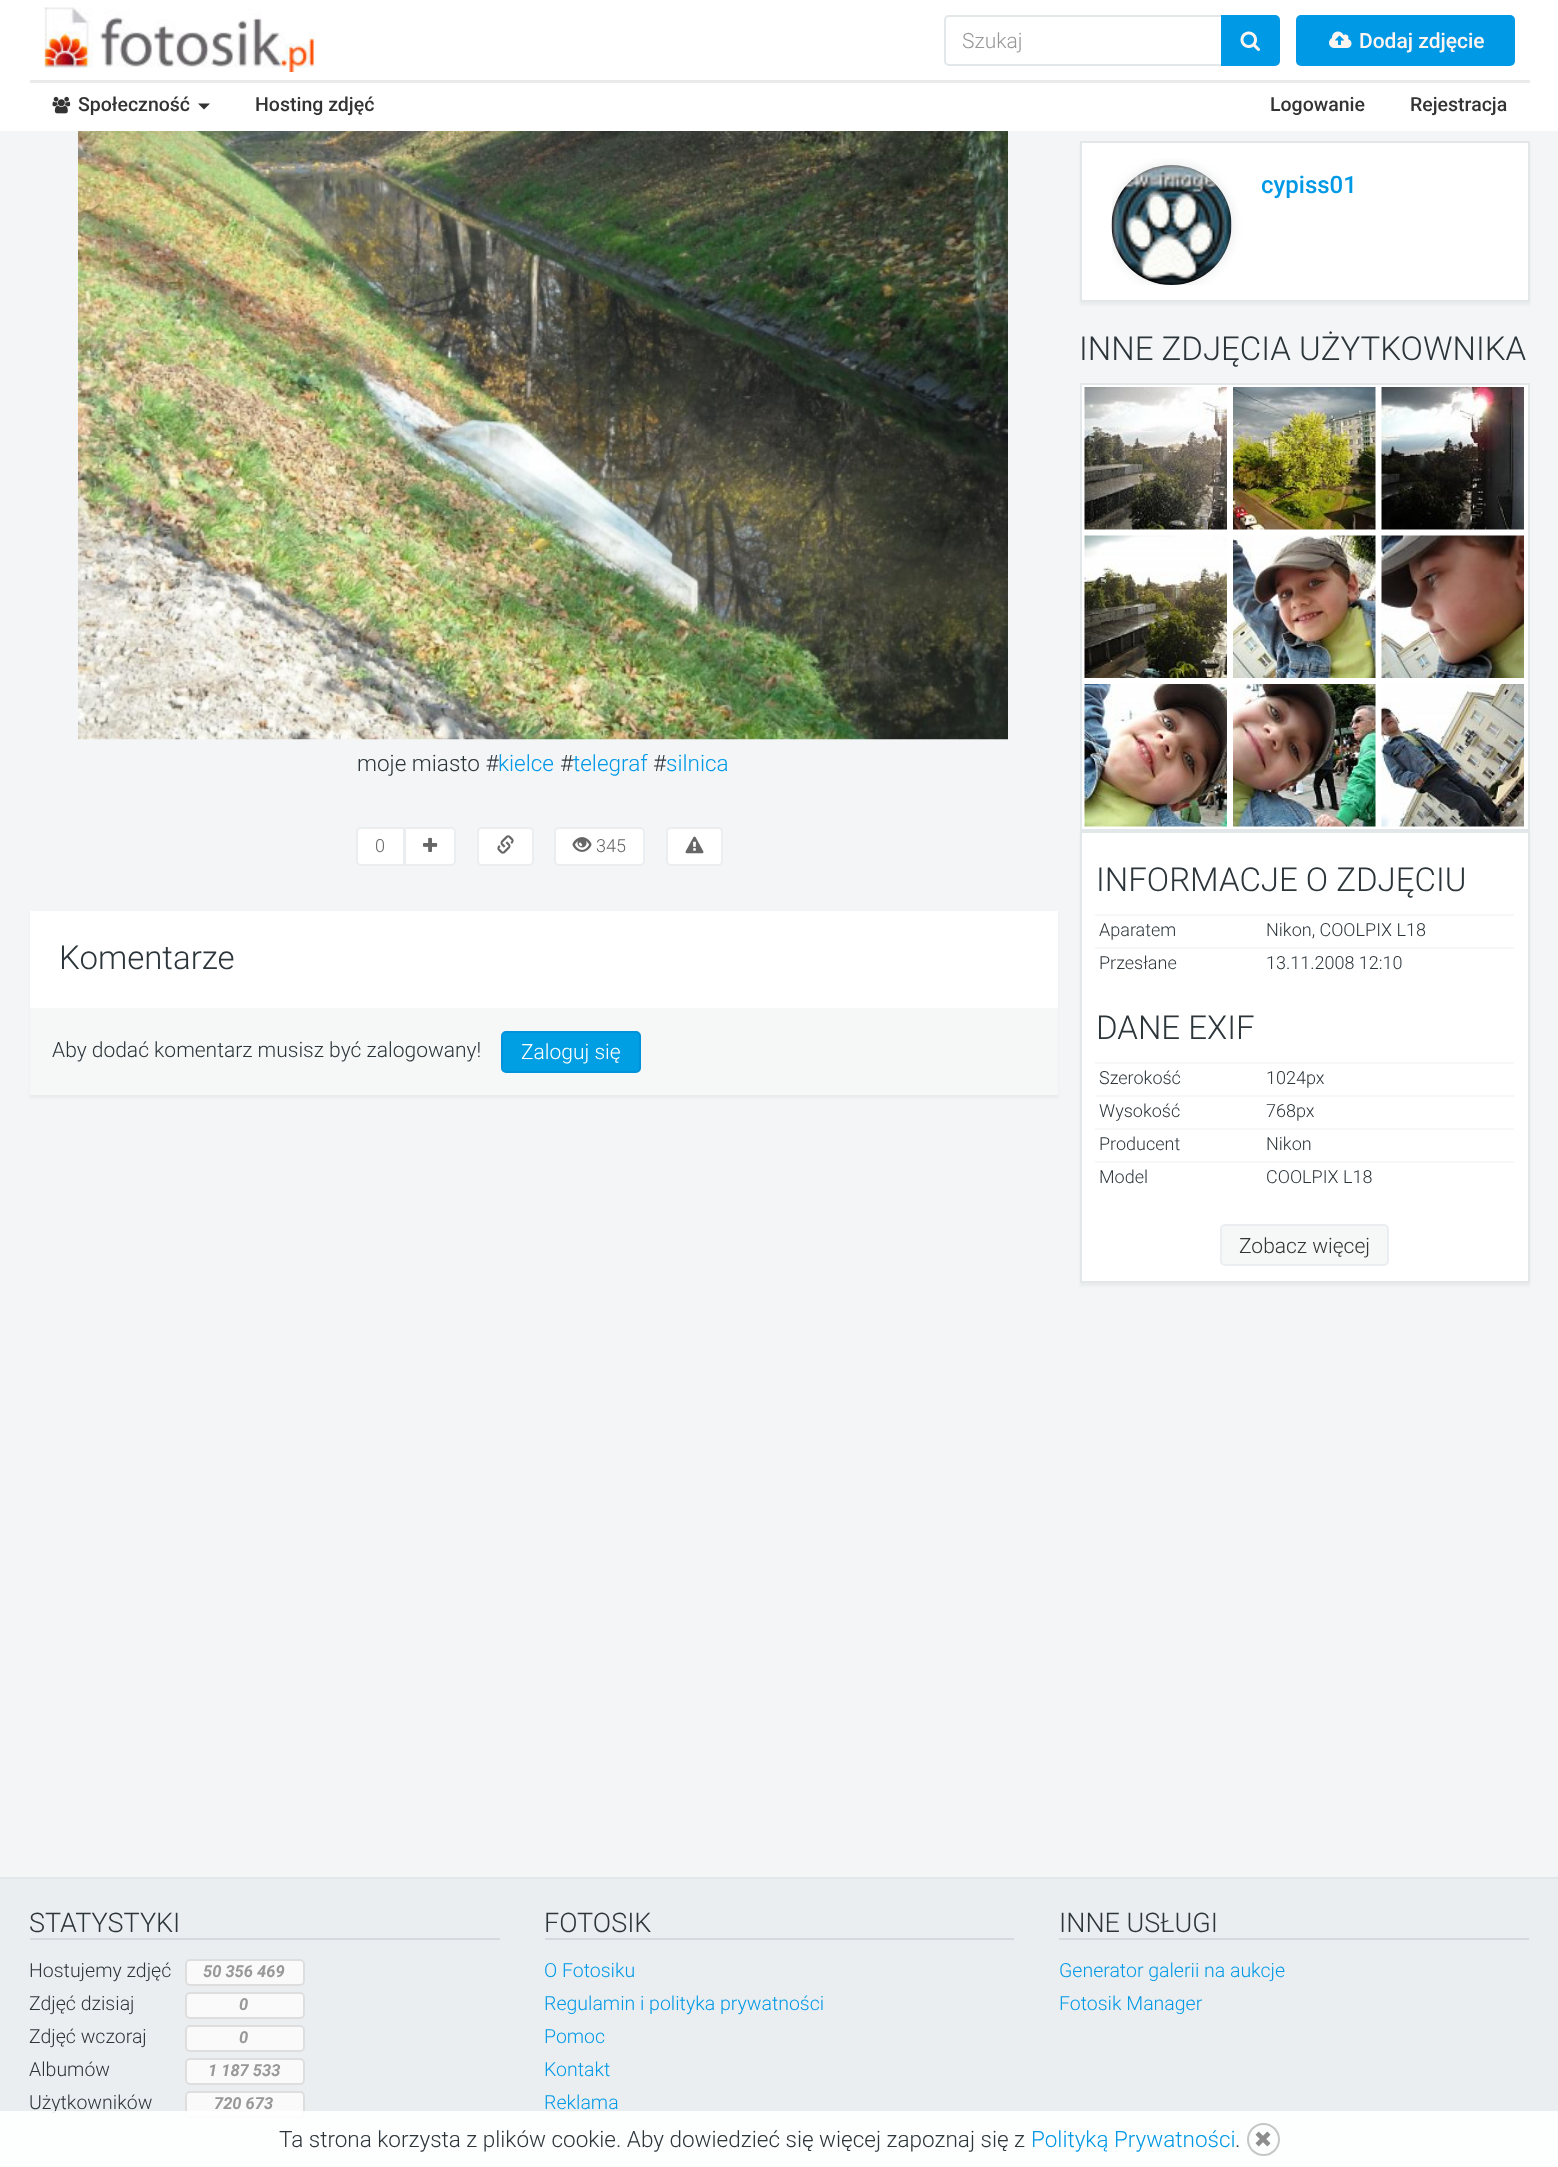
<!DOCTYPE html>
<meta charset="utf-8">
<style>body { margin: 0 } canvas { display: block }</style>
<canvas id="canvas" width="1558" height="2167"></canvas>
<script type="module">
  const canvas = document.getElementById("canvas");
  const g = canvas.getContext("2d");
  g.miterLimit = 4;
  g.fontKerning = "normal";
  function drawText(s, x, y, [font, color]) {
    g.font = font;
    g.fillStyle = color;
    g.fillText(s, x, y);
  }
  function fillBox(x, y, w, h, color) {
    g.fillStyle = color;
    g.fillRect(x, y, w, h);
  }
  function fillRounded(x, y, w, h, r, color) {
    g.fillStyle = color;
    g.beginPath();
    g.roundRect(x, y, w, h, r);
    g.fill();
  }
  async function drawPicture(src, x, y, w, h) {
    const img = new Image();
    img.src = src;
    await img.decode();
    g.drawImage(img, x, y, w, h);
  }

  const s1 = ["300 21px Roboto", "#989898"];
  const s2 = ["500 21px Roboto", "#FFF5F0"];
  const s3 = ["500 19.5px Roboto", "#333333"];
  const s4 = ["300 22.5px Roboto", "#2C353A"];
  const s5 = ["300 22.5px Roboto", "#0099E6"];
  const s6 = ["300 18px Roboto", "#666666"];
  const s7 = ["300 33px Roboto", "#2C353A"];
  const s8 = ["300 21px Roboto", "#2C353A"];
  const s9 = ["300 21px Roboto", "#FFFFFF"];
  const s10 = ["500 24px Roboto", "#0099E6"];
  const s11 = ["300 18px Roboto", "#2C353A"];
  const s12 = ["300 21px Roboto", "#333333"];
  const s13 = ["300 27px Roboto", "#2C353A"];
  const s14 = ["300 19.5px Roboto", "#2C353A"];
  const s15 = ["italic bold 16.5px Roboto", "#989898"];
  const s16 = ["300 19.5px Roboto", "#0099E6"];

  fillBox(0, 0, 1558, 2167, "#F3F5F6");
  fillBox(0, 0, 1558, 131, "#FFFFFF");
  await drawPicture("pic1.png", 44, 7, 271, 65);
  g.beginPath();
  g.roundRect(945, 16, 277, 49, [4, 0, 0, 4]);
  g.strokeStyle = "#E2E7E9";
  g.lineWidth = 2;
  g.stroke();
  drawText("Szukaj", 962, 48, s1);
  g.fillStyle = "#0099E6";
  g.beginPath();
  g.roundRect(1221, 15, 59, 51, [0, 5, 5, 0]);
  g.fill();
  await drawPicture("pic2.png", 1240, 31, 20, 20);
  fillRounded(1296, 15, 219, 51, 5, "#0099E6");
  await drawPicture("pic3.png", 1329, 31, 23, 17);
  drawText("Dodaj zdjęcie", 1359, 48, s2);
  fillBox(30, 80, 1500, 3, "#EBEBEB");
  await drawPicture("pic4.png", 52, 96, 19, 18);
  drawText("Społeczność", 78, 111, s3);
  g.beginPath();
  g.moveTo(198, 103.5);
  g.lineTo(210, 103.5);
  g.lineTo(204, 109.5);
  g.closePath();
  g.fill();
  drawText("Hosting zdjęć", 255, 111, s3);
  drawText("Logowanie", 1270, 111, s3);
  drawText("Rejestracja", 1410, 111, s3);
  await drawPicture("pic5.png", 78, 131, 930, 609);
  drawText("moje miasto #", 357, 771, s4);
  drawText("kielce", 498, 771, s5);
  drawText("#", 560, 771, s4);
  drawText("telegraf", 573, 771, s5);
  drawText("#", 653, 771, s4);
  drawText("silnica", 666, 771, s5);
  g.fillStyle = "#FFFFFF";
  g.beginPath();
  g.roundRect(357, 828, 47, 37, [4, 0, 0, 4]);
  g.fill();
  g.strokeStyle = "#EBEEF0";
  g.stroke();
  drawText("0", 375, 852, s6);
  g.fillStyle = "#FFFFFF";
  g.beginPath();
  g.roundRect(405, 828, 50, 37, [0, 4, 4, 0]);
  g.fill();
  g.stroke();
  await drawPicture("pic6.png", 423, 837, 15, 15);
  g.beginPath();
  g.roundRect(478, 828, 55, 37, 4);
  g.fill();
  g.stroke();
  await drawPicture("pic7.png", 497, 835, 17, 19);
  g.beginPath();
  g.roundRect(555, 828, 89, 37, 4);
  g.fill();
  g.stroke();
  await drawPicture("pic8.png", 572, 837, 20, 15);
  drawText("345", 596, 852, s6);
  g.fillStyle = "#FFFFFF";
  g.beginPath();
  g.roundRect(667, 828, 55, 37, 4);
  g.fill();
  g.stroke();
  await drawPicture("pic9.png", 685, 836, 19, 18);
  g.fillStyle = "#E9EBEC";
  g.filter = "blur(1px)";
  g.beginPath();
  g.rect(30, 914, 1028, 184);
  g.fill();
  g.filter = "none";
  fillBox(30, 911, 1028, 97, "#FFFFFF");
  drawText("Komentarze", 59, 969, s7);
  fillBox(30, 1008, 1028, 87, "#F6F8F8");
  drawText("Aby dodać komentarz musisz być zalogowany!", 52, 1057, s8);
  g.fillStyle = "#009FE3";
  g.beginPath();
  g.roundRect(502, 1032, 138, 40, 4);
  g.fill();
  g.strokeStyle = "#0092DB";
  g.stroke();
  drawText("Zaloguj się", 521, 1059, s9);
  g.fillStyle = "#E9EBEC";
  g.filter = "blur(1px)";
  g.beginPath();
  g.rect(1080, 144, 450, 161);
  g.fill();
  g.filter = "none";
  g.fillStyle = "#FFFFFF";
  g.beginPath();
  g.rect(1081, 142, 448, 159);
  g.fill();
  g.strokeStyle = "#E2E7E9";
  g.stroke();
  g.save();
  g.beginPath();
  g.rect(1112, 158, 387, 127);
  g.clip();
  g.fillStyle = "#EFF0F1";
  g.filter = "blur(4px)";
  g.beginPath();
  g.roundRect(1109, 162, 126, 126, 63);
  g.fill();
  g.filter = "none";
  g.restore();
  await drawPicture("pic10.png", 1111, 165, 121, 120);
  drawText("cypiss01", 1261, 193, s10);
  drawText("INNE ZDJĘCIA UŻYTKOWNIKA", 1079, 360, s7);
  g.fillStyle = "#E9EBEC";
  g.filter = "blur(1px)";
  g.beginPath();
  g.rect(1080, 834, 450, 452);
  g.fill();
  g.filter = "none";
  g.fillStyle = "#FFFFFF";
  g.beginPath();
  g.rect(1081, 384, 448, 446);
  g.fill();
  g.stroke();
  await drawPicture("pic11.png", 1084, 387, 143, 143);
  await drawPicture("pic12.png", 1233, 387, 143, 143);
  await drawPicture("pic13.png", 1381, 387, 143, 143);
  await drawPicture("pic14.png", 1084, 535, 143, 143);
  await drawPicture("pic15.png", 1233, 535, 143, 143);
  await drawPicture("pic16.png", 1381, 535, 143, 143);
  await drawPicture("pic17.png", 1084, 684, 143, 143);
  await drawPicture("pic18.png", 1233, 684, 143, 143);
  await drawPicture("pic19.png", 1381, 684, 143, 143);
  g.beginPath();
  g.rect(1081, 832, 448, 450);
  g.fill();
  g.stroke();
  drawText("INFORMACJE O ZDJĘCIU", 1096, 891, s7);
  drawText("Aparatem", 1099, 936, s11);
  fillBox(1095, 914, 419, 2, "#F6F8F8");
  drawText("Nikon, COOLPIX L18", 1266, 936, s11);
  drawText("Przesłane", 1099, 969, s11);
  fillBox(1095, 947, 419, 2, "#F6F8F8");
  drawText("13.11.2008 12:10", 1266, 969, s11);
  drawText("DANE EXIF", 1096, 1039, s7);
  drawText("Szerokość", 1099, 1084, s11);
  fillBox(1095, 1062, 419, 2, "#F6F8F8");
  drawText("1024px", 1266, 1084, s11);
  drawText("Wysokość", 1099, 1117, s11);
  fillBox(1095, 1095, 419, 2, "#F6F8F8");
  drawText("768px", 1266, 1117, s11);
  drawText("Producent", 1099, 1150, s11);
  fillBox(1095, 1128, 419, 2, "#F6F8F8");
  drawText("Nikon", 1266, 1150, s11);
  drawText("Model", 1099, 1183, s11);
  fillBox(1095, 1161, 419, 2, "#F6F8F8");
  drawText("COOLPIX L18", 1266, 1183, s11);
  g.fillStyle = "#F6F8F8";
  g.beginPath();
  g.roundRect(1221, 1225, 167, 40, 4);
  g.fill();
  g.strokeStyle = "#EBEEF0";
  g.stroke();
  drawText("Zobacz więcej", 1239, 1253, s12);
  fillBox(0, 1879, 1558, 288, "#EBEEF0");
  fillBox(0, 1877, 1558, 2, "#E2E7E9");
  fillBox(30, 1938, 470, 2, "#D3DBDE");
  drawText("STATYSTYKI", 29, 1932, s13);
  drawText("Hostujemy zdjęć", 29, 1977, s14);
  g.fillStyle = "#FAFAFA";
  g.beginPath();
  g.roundRect(186, 1960, 118, 25, 4);
  g.fill();
  g.strokeStyle = "#DEDEDE";
  g.stroke();
  drawText("50 356 469", 203, 1977, s15);
  drawText("Zdjęć dzisiaj", 29, 2010, s14);
  g.fillStyle = "#FAFAFA";
  g.beginPath();
  g.roundRect(186, 1993, 118, 25, 4);
  g.fill();
  g.stroke();
  drawText("0", 239, 2010, s15);
  drawText("Zdjęć wczoraj", 29, 2043, s14);
  g.fillStyle = "#FAFAFA";
  g.beginPath();
  g.roundRect(186, 2026, 118, 25, 4);
  g.fill();
  g.stroke();
  drawText("0", 239, 2043, s15);
  drawText("Albumów", 29, 2076, s14);
  g.fillStyle = "#FAFAFA";
  g.beginPath();
  g.roundRect(186, 2059, 118, 25, 4);
  g.fill();
  g.stroke();
  drawText("1 187 533", 208, 2076, s15);
  drawText("Użytkowników", 29, 2109, s14);
  g.fillStyle = "#FAFAFA";
  g.beginPath();
  g.roundRect(186, 2092, 118, 25, 4);
  g.fill();
  g.stroke();
  drawText("720 673", 214, 2109, s15);
  fillBox(545, 1938, 469, 2, "#D3DBDE");
  drawText("FOTOSIK", 544, 1932, s13);
  drawText("O Fotosiku", 544, 1977, s16);
  drawText("Regulamin i polityka prywatności", 544, 2010, s16);
  drawText("Pomoc", 544, 2043, s16);
  drawText("Kontakt", 544, 2076, s16);
  drawText("Reklama", 544, 2109, s16);
  fillBox(1059, 1938, 470, 2, "#D3DBDE");
  drawText("INNE USŁUGI", 1059, 1932, s13);
  drawText("Generator galerii na aukcje", 1059, 1977, s16);
  drawText("Fotosik Manager", 1059, 2010, s16);
  fillBox(0, 2111, 1558, 56, "rgba(255, 255, 255, 0.9)");
  drawText("Ta strona korzysta z plików cookie. Aby dowiedzieć się więcej zapoznaj się z", 279, 2147, s4);
  drawText("Polityką Prywatności", 1031, 2147, s5);
  drawText(".", 1235, 2147, s4);
  g.beginPath();
  g.arc(1263.5, 2139.5, 15.5, 0, Math.PI * 2);
  g.strokeStyle = "#C6C6C6";
  g.stroke();
  await drawPicture("pic20.png", 1255, 2131, 16, 16);
</script>
